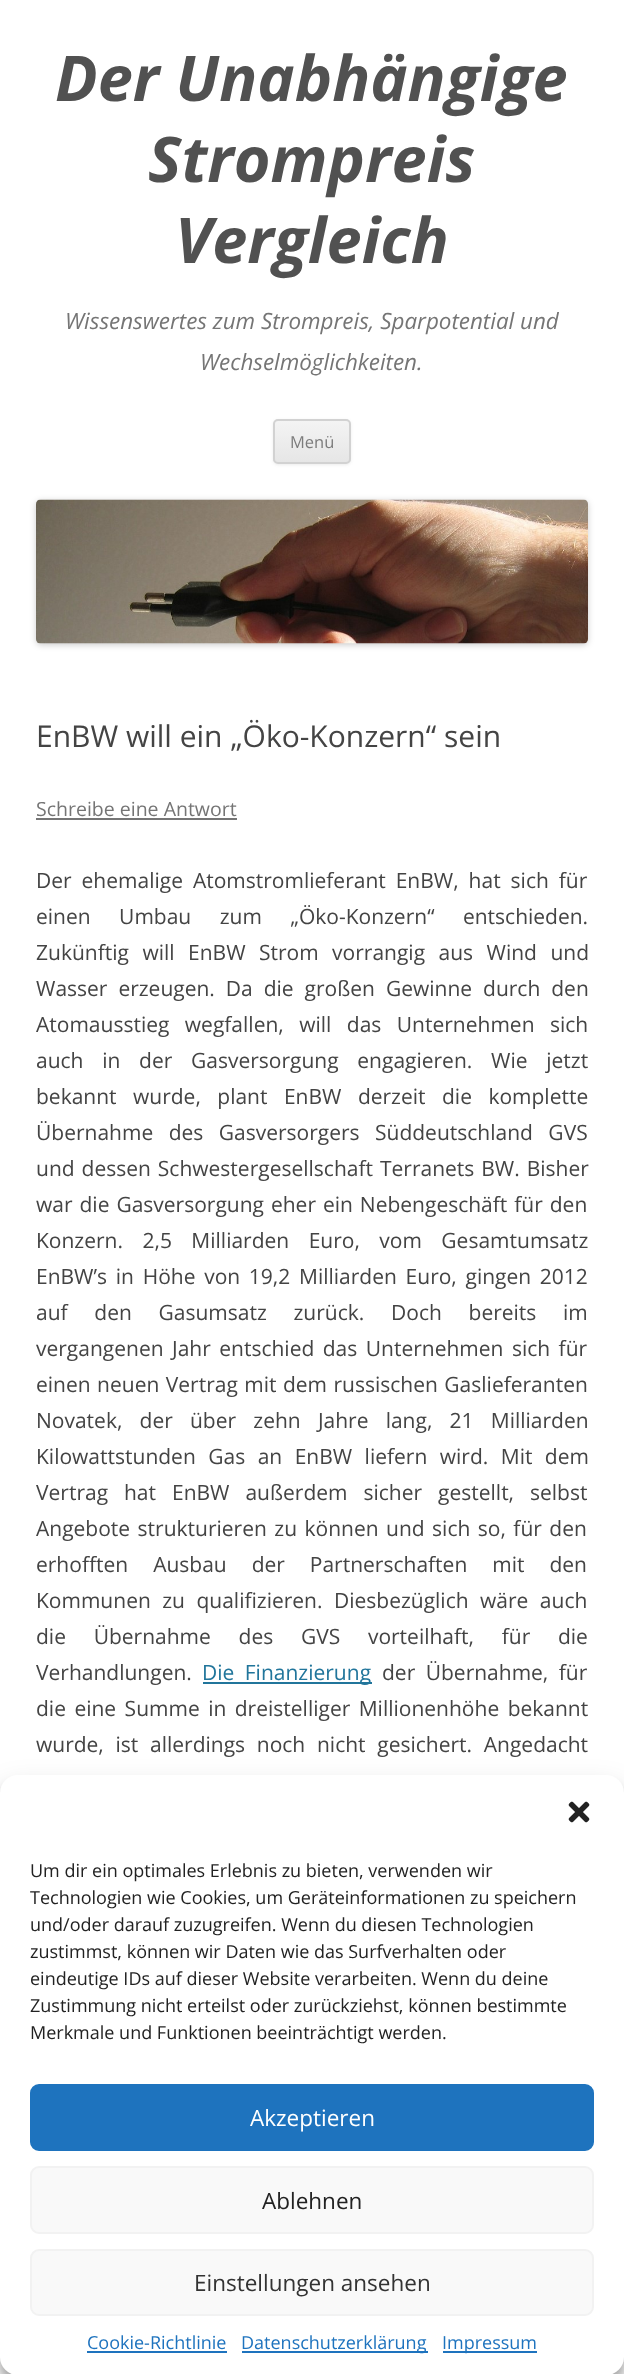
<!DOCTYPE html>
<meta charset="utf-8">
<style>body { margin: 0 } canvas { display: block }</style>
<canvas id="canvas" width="624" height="2374"></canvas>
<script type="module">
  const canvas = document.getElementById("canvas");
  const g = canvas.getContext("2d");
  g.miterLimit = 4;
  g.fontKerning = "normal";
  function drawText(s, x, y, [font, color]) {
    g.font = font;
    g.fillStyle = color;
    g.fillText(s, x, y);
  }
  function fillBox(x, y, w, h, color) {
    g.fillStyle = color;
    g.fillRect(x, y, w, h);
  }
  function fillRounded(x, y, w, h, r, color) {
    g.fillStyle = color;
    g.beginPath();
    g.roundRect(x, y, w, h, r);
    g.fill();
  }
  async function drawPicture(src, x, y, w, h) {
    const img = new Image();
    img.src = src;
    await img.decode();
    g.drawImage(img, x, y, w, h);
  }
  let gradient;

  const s1 = ["italic bold 63px Open Sans", "#515151"];
  const s2 = ["italic 22.4px Open Sans", "#757575"];
  const s3 = ["16.5px Open Sans", "#7C7C7C"];
  const s4 = ["30px Open Sans", "#444444"];
  const s5 = ["19.5px Open Sans", "#757575"];
  const s6 = ["21px Open Sans", "#444444"];
  const s7 = ["21px Open Sans", "#21759B"];
  const s8 = ["18px Open Sans", "#222222"];
  const s9 = ["22.5px Open Sans", "#FFFFFF"];
  const s10 = ["22.5px Open Sans", "#222222"];
  const s11 = ["22.5px Open Sans", "#333333"];
  const s12 = ["18px Open Sans", "#1E73BE"];

  fillBox(0, 0, 624, 2374, "#FFFFFF");
  drawText("Der Unabhängige", 55, 101, s1);
  drawText("Strompreis", 148, 182, s1);
  drawText("Vergleich", 175, 263, s1);
  drawText("Wissenswertes zum Strompreis, Sparpotential und", 65, 329, s2);
  drawText("Wechselmöglichkeiten.", 200, 370, s2);
  g.fillStyle = "rgba(64, 64, 64, 0.1)";
  g.filter = "blur(1.5px)";
  g.beginPath();
  g.roundRect(273, 420, 78, 45, 5);
  g.fill();
  g.filter = "none";
  g.save();
  g.beginPath();
  g.roundRect(273, 419, 78, 45, 5);
  g.clip();
  gradient = g.createLinearGradient(312, 420, 312, 462);
  gradient.addColorStop(0, "#F4F4F4");
  gradient.addColorStop(1, "#E6E6E6");
  g.fillStyle = gradient;
  g.fillRect(273, 420, 78, 42);
  g.restore();
  g.beginPath();
  g.roundRect(274, 420, 76, 43, 4);
  g.strokeStyle = "#D2D2D2";
  g.lineWidth = 2;
  g.stroke();
  drawText("Menü", 290, 448, s3);
  g.fillStyle = "rgba(0, 0, 0, 0.2)";
  g.filter = "blur(3px)";
  g.beginPath();
  g.roundRect(36, 501, 552, 144, 5);
  g.fill();
  g.filter = "none";
  await drawPicture("pic1.png", 36, 499, 552, 145);
  drawText("EnBW will ein „Öko-Konzern“ sein", 36, 747, s4);
  drawText("Schreibe eine Antwort", 36, 816, s5);
  fillBox(36, 818, 201, 2, "#757575");
  g.wordSpacing = "4.5px";
  drawText("Der ehemalige Atomstromlieferant EnBW, hat sich für", 36, 888, s6);
  g.wordSpacing = "23px";
  drawText("einen Umbau zum „Öko-Konzern“ entschieden.", 36, 924, s6);
  g.wordSpacing = "8px";
  drawText("Zukünftig will EnBW Strom vorrangig aus Wind und", 36, 960, s6);
  g.wordSpacing = "5.5px";
  drawText("Wasser erzeugen. Da die großen Gewinne durch den", 36, 996, s6);
  g.wordSpacing = "10px";
  drawText("Atomausstieg wegfallen, will das Unternehmen sich", 36, 1032, s6);
  g.wordSpacing = "13.25px";
  drawText("auch in der Gasversorgung engagieren. Wie jetzt", 36, 1068, s6);
  g.wordSpacing = "11px";
  drawText("bekannt wurde, plant EnBW derzeit die komplette", 36, 1104, s6);
  g.wordSpacing = "10px";
  drawText("Übernahme des Gasversorgers Süddeutschland GVS", 36, 1140, s6);
  g.wordSpacing = "1.5px";
  drawText("und dessen Schwestergesellschaft Terranets BW. Bisher", 36, 1176, s6);
  drawText("war die Gasversorgung eher ein Nebengeschäft für den", 36, 1212, s6);
  g.wordSpacing = "14px";
  drawText("Konzern. 2,5 Milliarden Euro, vom Gesamtumsatz", 36, 1248, s6);
  g.wordSpacing = "3.25px";
  drawText("EnBW’s in Höhe von 19,2 Milliarden Euro, gingen 2012", 36, 1284, s6);
  g.wordSpacing = "21.25px";
  drawText("auf den Gasumsatz zurück. Doch bereits im", 36, 1320, s6);
  g.wordSpacing = "3px";
  drawText("vergangenen Jahr entschied das Unternehmen sich für", 36, 1356, s6);
  g.wordSpacing = "1px";
  drawText("einen neuen Vertrag mit dem russischen Gaslieferanten", 36, 1392, s6);
  g.wordSpacing = "11.75px";
  drawText("Novatek, der über zehn Jahre lang, 21 Milliarden", 36, 1428, s6);
  g.wordSpacing = "7px";
  drawText("Kilowattstunden Gas an EnBW liefern wird. Mit dem", 36, 1464, s6);
  g.wordSpacing = "10.5px";
  drawText("Vertrag hat EnBW außerdem sicher gestellt, selbst", 36, 1500, s6);
  g.wordSpacing = "2px";
  drawText("Angebote strukturieren zu können und sich so, für den", 36, 1536, s6);
  g.wordSpacing = "19.5px";
  drawText("erhofften Ausbau der Partnerschaften mit den", 36, 1572, s6);
  g.wordSpacing = "6px";
  drawText("Kommunen zu qualifizieren. Diesbezüglich wäre auch", 36, 1608, s6);
  g.wordSpacing = "22.25px";
  drawText("die Übernahme des GVS vorteilhaft, für die", 36, 1644, s6);
  g.wordSpacing = "0px";
  drawText("Verhandlungen.", 36, 1680, s6);
  fillBox(203, 1682, 169, 2, "#21759B");
  g.wordSpacing = "5px";
  drawText("Die Finanzierung", 202, 1680, s7);
  drawText("der Übernahme, für", 382, 1680, s6);
  g.wordSpacing = "3px";
  drawText("die eine Summe in dreistelliger Millionenhöhe bekannt", 36, 1716, s6);
  g.wordSpacing = "6.25px";
  drawText("wurde, ist allerdings noch nicht gesichert. Angedacht", 36, 1752, s6);
  g.fillStyle = "rgba(0, 0, 0, 0.23)";
  g.filter = "blur(4.5px)";
  g.beginPath();
  g.roundRect(0, 1784, 624, 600, 18);
  g.fill();
  g.filter = "none";
  g.fillStyle = "rgba(0, 0, 0, 0.19)";
  g.filter = "blur(15px)";
  g.beginPath();
  g.roundRect(0, 1790, 624, 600, 18);
  g.fill();
  g.filter = "none";
  fillRounded(0, 1775, 624, 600, 18, "#FFFFFF");
  await drawPicture("pic2.png", 568, 1801, 22, 22);
  g.wordSpacing = "0px";
  drawText("Um dir ein optimales Erlebnis zu bieten, verwenden wir", 30, 1877, s8);
  drawText("Technologien wie Cookies, um Geräteinformationen zu speichern", 30, 1904, s8);
  drawText("und/oder darauf zuzugreifen. Wenn du diesen Technologien", 30, 1931, s8);
  drawText("zustimmst, können wir Daten wie das Surfverhalten oder", 30, 1958, s8);
  drawText("eindeutige IDs auf dieser Website verarbeiten. Wenn du deine", 30, 1985, s8);
  drawText("Zustimmung nicht erteilst oder zurückziehst, können bestimmte", 30, 2012, s8);
  drawText("Merkmale und Funktionen beeinträchtigt werden.", 30, 2039, s8);
  g.fillStyle = "#1E73BE";
  g.beginPath();
  g.roundRect(31, 2085, 562, 65, 8);
  g.fill();
  g.strokeStyle = "#1E73BE";
  g.stroke();
  drawText("Akzeptieren", 250, 2126, s9);
  g.fillStyle = "#F9F9F9";
  g.beginPath();
  g.roundRect(31, 2167, 562, 66, 8);
  g.fill();
  g.strokeStyle = "#F2F2F2";
  g.stroke();
  drawText("Ablehnen", 262, 2209, s10);
  g.fillStyle = "#F9F9F9";
  g.beginPath();
  g.roundRect(31, 2250, 562, 65, 8);
  g.fill();
  g.stroke();
  drawText("Einstellungen ansehen", 194, 2291, s11);
  drawText("Cookie-Richtlinie", 87, 2349, s12);
  fillBox(87, 2351, 140, 2, "#1E73BE");
  fillBox(242, 2351, 186, 2, "#1E73BE");
  drawText("Datenschutzerklärung", 241, 2349, s12);
  fillBox(443, 2351, 94, 2, "#1E73BE");
  drawText("Impressum", 442, 2349, s12);
</script>
